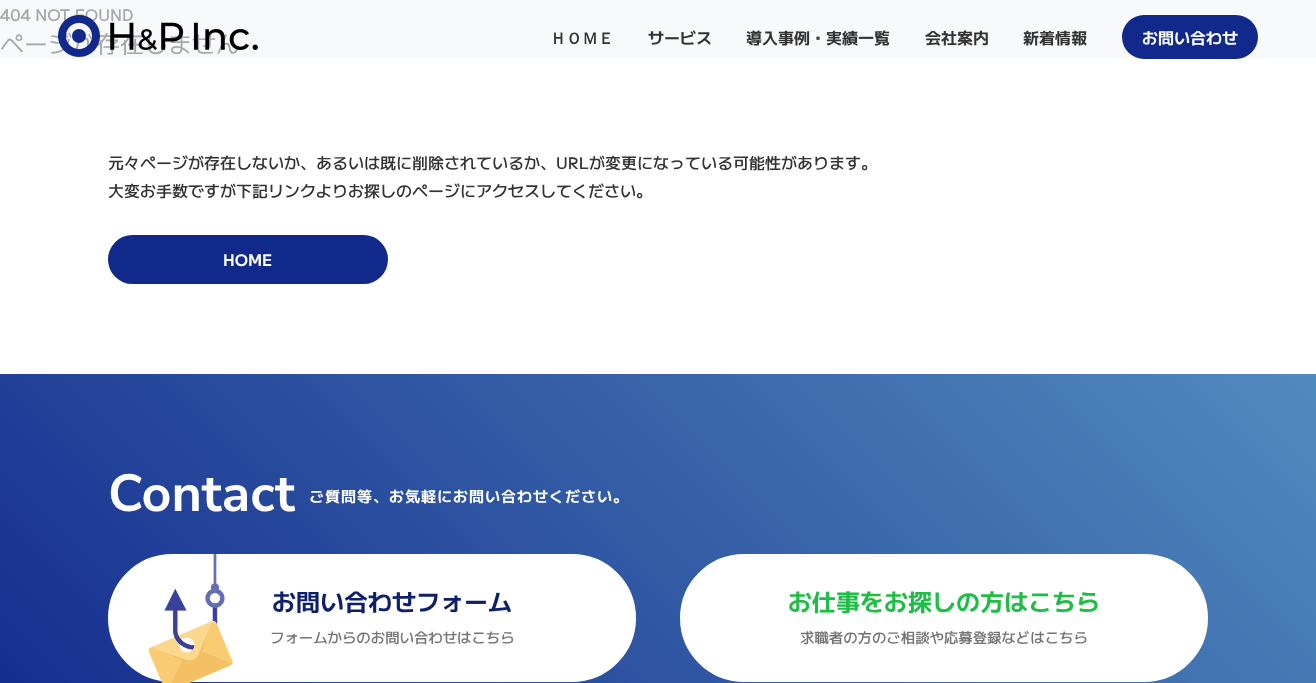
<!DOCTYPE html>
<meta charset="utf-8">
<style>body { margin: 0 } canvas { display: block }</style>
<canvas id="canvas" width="1316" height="683"></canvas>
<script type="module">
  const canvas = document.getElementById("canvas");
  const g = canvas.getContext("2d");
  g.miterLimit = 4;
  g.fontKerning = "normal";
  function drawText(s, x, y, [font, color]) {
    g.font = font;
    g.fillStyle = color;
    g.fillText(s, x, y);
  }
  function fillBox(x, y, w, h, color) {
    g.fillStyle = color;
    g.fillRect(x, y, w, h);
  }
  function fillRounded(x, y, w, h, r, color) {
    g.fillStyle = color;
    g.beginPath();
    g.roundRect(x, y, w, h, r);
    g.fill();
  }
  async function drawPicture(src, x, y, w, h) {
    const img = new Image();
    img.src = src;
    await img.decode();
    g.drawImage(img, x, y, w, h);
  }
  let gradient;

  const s1 = ["500 16px 'M PLUS 1'", "#A6A7A9"];
  const s2 = ["24px 'M PLUS 1'", "#A6A7A9"];
  const s3 = ["bold 16px WenQuanYi Zen Hei", "#333333"];
  const s4 = ["bold 16px 'M PLUS 1'", "#333333"];
  const s5 = ["bold 16px 'M PLUS 1'", "#FFFFFF"];
  const s6 = ["500 16px 'M PLUS 1'", "#333333"];
  const s7 = ["bold 52px Nunito Sans", "#FFFFFF"];
  const s8 = ["bold 15px 'M PLUS 1'", "#FFFFFF"];
  const s9 = ["bold 24px 'M PLUS 1'", "#0E206D"];
  const s10 = ["500 14.4px 'M PLUS 1'", "#757575"];
  const s11 = ["bold 24px 'M PLUS 1'", "#1EBE46"];

  fillBox(0, 0, 1316, 683, "#FFFFFF");
  fillBox(0, 0, 1316, 58, "#F7F9FB");
  drawText("404 NOT FOUND", 0, 21, s1);
  drawText("ページが存在しません", 0, 53, s2);
  await drawPicture("pic1.png", 58, 15, 200, 42);
  drawText("ＨＯＭＥ", 550, 44, s3);
  drawText("サービス", 648, 44, s4);
  drawText("導入事例・実績一覧", 746, 44, s4);
  drawText("会社案内", 925, 44, s4);
  drawText("新着情報", 1023, 44, s4);
  fillRounded(1122, 15, 136, 44, 22, "#12298C");
  drawText("お問い合わせ", 1142, 44, s5);
  drawText("元々ページが存在しないか、あるいは既に削除されているか、URLが変更になっている可能性があります。", 108, 169, s6);
  drawText("大変お手数ですが下記リンクよりお探しのページにアクセスしてください。", 108, 197, s6);
  fillRounded(108, 235, 280, 49, 24.5, "#12298C");
  drawText("HOME", 223, 266, s5);
  gradient = g.createLinearGradient(230, 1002, 1087, 144);
  gradient.addColorStop(0, "#12298C");
  gradient.addColorStop(1, "#528BBE");
  g.fillStyle = gradient;
  g.fillRect(0, 374, 1316, 309);
  drawText("Contact", 108, 511, s7);
  g.letterSpacing = "1px";
  drawText("ご質問等、お気軽にお問い合わせください。", 309, 502, s8);
  g.beginPath();
  g.roundRect(113, 559, 518, 118, 59);
  g.fill();
  g.strokeStyle = "#FFFFFF";
  g.lineWidth = 10;
  g.stroke();
  await drawPicture("pic2.png", 148, 554, 85, 129);
  g.letterSpacing = "0px";
  drawText("お問い合わせフォーム", 272, 611, s9);
  drawText("フォームからのお問い合わせはこちら", 270, 643, s10);
  g.fillStyle = "#FFFFFF";
  g.beginPath();
  g.roundRect(685, 559, 518, 118, 59);
  g.fill();
  g.stroke();
  drawText("お仕事をお探しの方はこちら", 788, 611, s11);
  drawText("求職者の方のご相談や応募登録などはこちら", 800, 643, s10);
</script>
